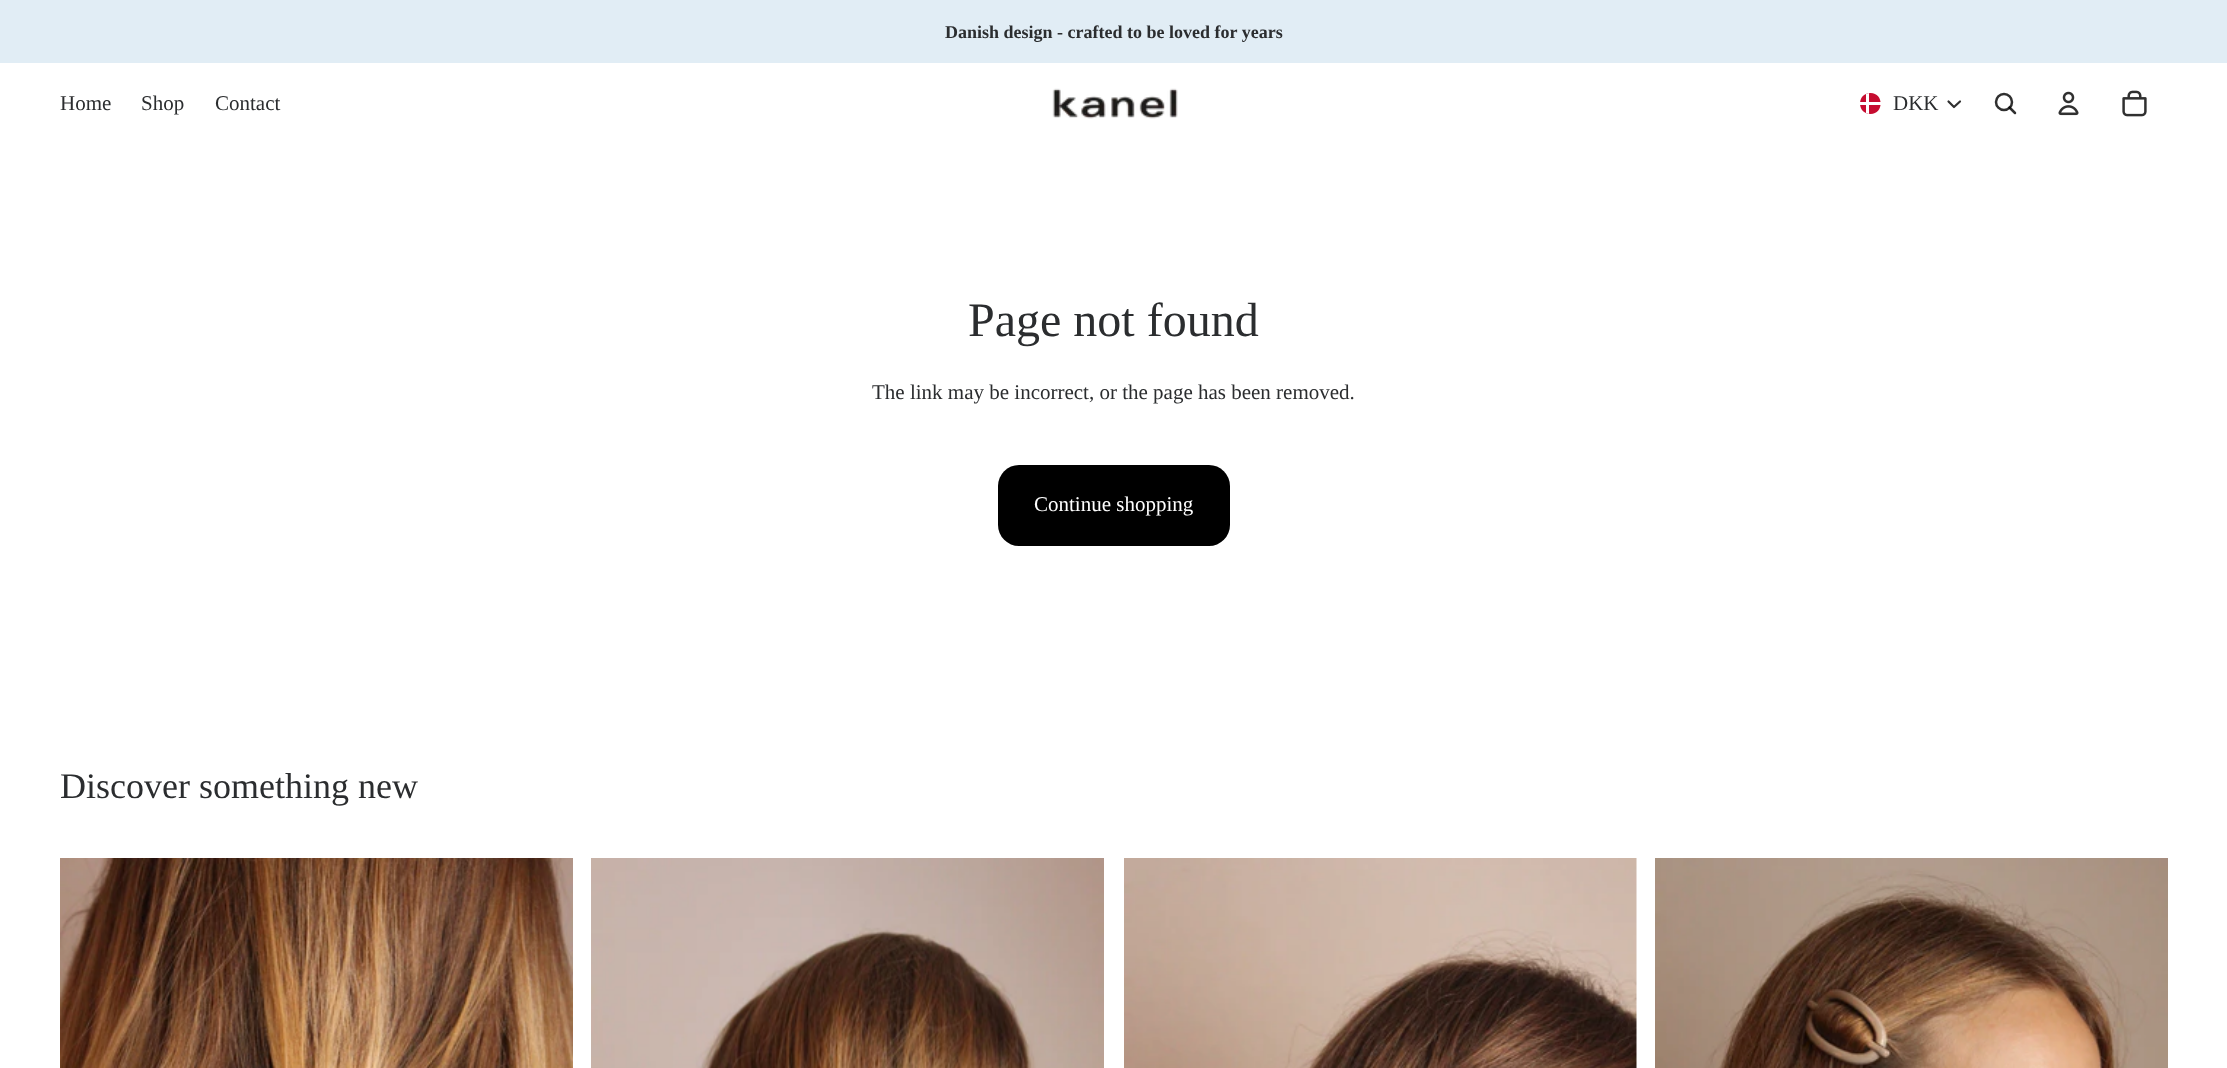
<!DOCTYPE html>
<meta charset="utf-8">
<style>body { margin: 0 } canvas { display: block }</style>
<canvas id="canvas" width="2227" height="1068"></canvas>
<script type="module">
  const canvas = document.getElementById("canvas");
  const g = canvas.getContext("2d");
  g.miterLimit = 4;
  g.fontKerning = "normal";
  function drawText(s, x, y, [font, color]) {
    g.font = font;
    g.fillStyle = color;
    g.fillText(s, x, y);
  }
  function fillBox(x, y, w, h, color) {
    g.fillStyle = color;
    g.fillRect(x, y, w, h);
  }
  function fillRounded(x, y, w, h, r, color) {
    g.fillStyle = color;
    g.beginPath();
    g.roundRect(x, y, w, h, r);
    g.fill();
  }
  async function drawPicture(src, x, y, w, h) {
    const img = new Image();
    img.src = src;
    await img.decode();
    g.drawImage(img, x, y, w, h);
  }

  const s1 = ["bold 18px Liberation Serif", "#2B2D2F"];
  const s2 = ["21px Liberation Serif", "#2B2D2F"];
  const s3 = ["48px Liberation Serif", "#2B2D2F"];
  const s4 = ["21px Liberation Serif", "#FFFFFF"];
  const s5 = ["36px Liberation Serif", "#2B2D2F"];

  fillBox(0, 0, 2227, 1068, "#FFFFFF");
  fillBox(0, 0, 2227, 63, "#E1EDF5");
  drawText("Danish design - crafted to be loved for years", 945, 38, s1);
  drawText("Home", 60, 110, s2);
  drawText("Shop", 141, 110, s2);
  drawText("Contact", 215, 110, s2);
  await drawPicture("pic1.png", 1052, 88, 126, 31);
  g.fillStyle = "#C60C30";
  g.beginPath();
  g.moveTo(1870.5, 93);
  g.bezierCurveTo(1884, 93, 1884, 114, 1870.5, 114);
  g.bezierCurveTo(1856.5, 114, 1856.5, 93, 1870.5, 93);
  g.closePath();
  g.fill();
  g.fillStyle = "#FFFFFF";
  g.beginPath();
  g.moveTo(1866, 94);
  g.lineTo(1869, 93);
  g.lineTo(1869, 114);
  g.lineTo(1866, 113);
  g.closePath();
  g.fill();
  fillBox(1860, 102, 21, 3, "#FFFFFF");
  drawText("DKK", 1893, 110, s2);
  g.beginPath();
  g.moveTo(1960, 101.5);
  g.lineTo(1954, 107);
  g.lineTo(1948.5, 101.5);
  g.strokeStyle = "#303030";
  g.lineWidth = 2.2;
  g.lineCap = "round";
  g.lineJoin = "round";
  g.stroke();
  g.beginPath();
  g.arc(2004, 102, 8, 0, Math.PI * 2);
  g.lineWidth = 2.5;
  g.stroke();
  g.beginPath();
  g.moveTo(2009.5, 107.5);
  g.lineTo(2015, 113);
  g.strokeStyle = "rgba(0, 0, 0, 0.81)";
  g.stroke();
  await drawPicture("pic2.png", 2058, 91, 21, 25);
  await drawPicture("pic3.png", 2122, 90, 25, 27);
  drawText("Page not found", 968, 336, s3);
  drawText("The link may be incorrect, or the page has been removed.", 872, 399, s2);
  fillRounded(998, 465, 232, 81, 21, "#000000");
  drawText("Continue shopping", 1034, 511, s4);
  drawText("Discover something new", 60, 798, s5);
  await drawPicture("pic4.png", 60, 858, 513, 210);
  await drawPicture("pic5.png", 591, 858, 513, 210);
  await drawPicture("pic6.png", 1124, 858, 513, 210);
  await drawPicture("pic7.png", 1655, 858, 513, 210);
</script>
